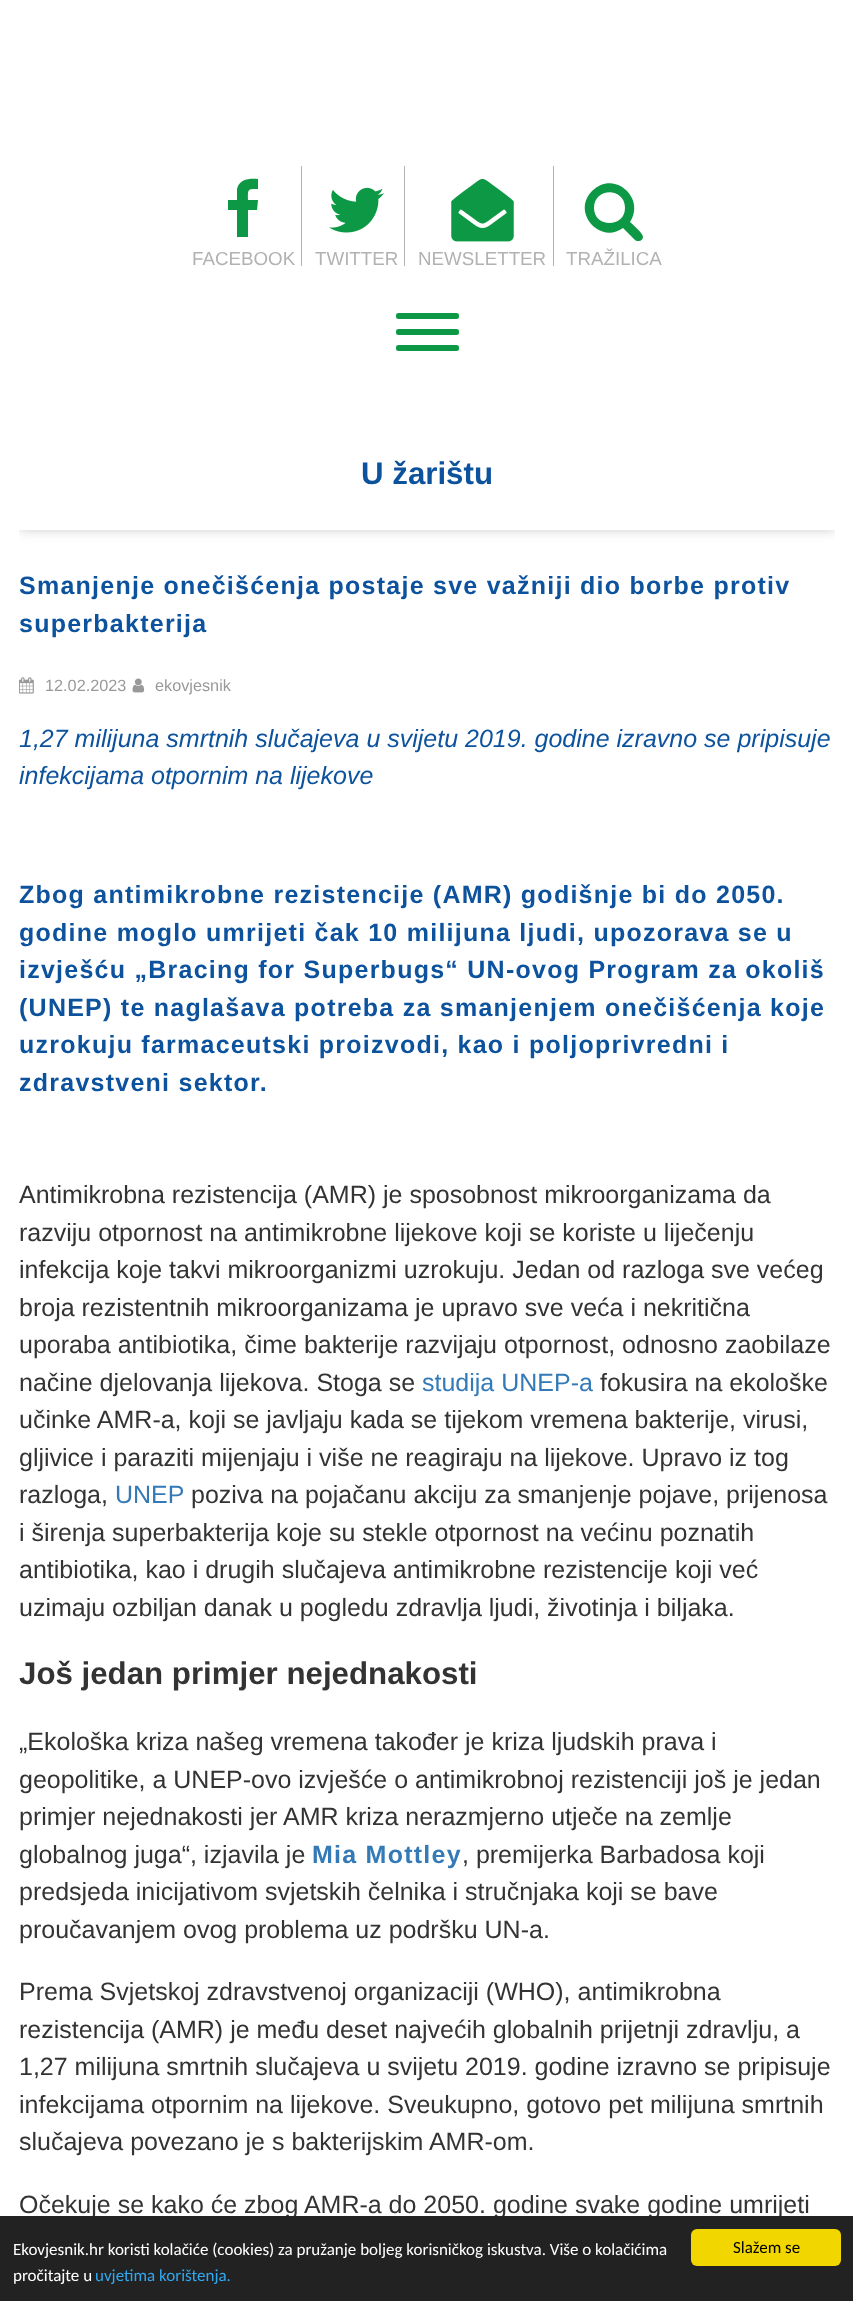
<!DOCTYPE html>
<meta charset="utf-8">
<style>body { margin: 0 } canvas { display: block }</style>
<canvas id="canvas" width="853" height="2301"></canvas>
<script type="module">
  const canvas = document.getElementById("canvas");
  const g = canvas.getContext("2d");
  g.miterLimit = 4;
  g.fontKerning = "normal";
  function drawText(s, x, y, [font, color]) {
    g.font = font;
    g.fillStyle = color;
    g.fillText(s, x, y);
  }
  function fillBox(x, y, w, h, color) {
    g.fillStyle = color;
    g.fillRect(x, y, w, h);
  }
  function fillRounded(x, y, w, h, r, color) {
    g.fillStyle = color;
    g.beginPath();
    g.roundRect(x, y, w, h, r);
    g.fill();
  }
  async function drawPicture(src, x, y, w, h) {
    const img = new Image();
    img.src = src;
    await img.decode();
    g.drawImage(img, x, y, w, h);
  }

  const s1 = ["18.75px Liberation Sans", "#B2B2B2"];
  const s2 = ["bold 31.25px Liberation Sans", "#0C529D"];
  const s3 = ["bold 25px Liberation Sans", "#0C529D"];
  const s4 = ["16.25px Liberation Sans", "#999999"];
  const s5 = ["italic 25px Liberation Sans", "#0C529D"];
  const s6 = ["25px Liberation Sans", "#333333"];
  const s7 = ["25px Liberation Sans", "#337AB7"];
  const s8 = ["bold 31.25px Liberation Sans", "#333333"];
  const s9 = ["bold 25px Liberation Sans", "#337AB7"];
  const s10 = ["17px Carlito", "#FFFFFF"];
  const s11 = ["17px Carlito", "#31A8F0"];
  const s12 = ["17px Carlito", "#000000"];

  fillBox(0, 0, 853, 2301, "#FFFFFF");
  fillBox(301, 166, 1, 100, "#B2B2B2");
  g.fillStyle = "#0D9845";
  g.beginPath();
  g.moveTo(258, 179);
  g.bezierCurveTo(250, 178, 239, 179, 237, 189);
  g.lineTo(237, 200);
  g.lineTo(228, 200);
  g.lineTo(228, 210);
  g.lineTo(237, 210);
  g.lineTo(237, 237);
  g.lineTo(248, 237);
  g.lineTo(248, 210);
  g.lineTo(257, 210);
  g.lineTo(258, 200);
  g.lineTo(248, 200);
  g.bezierCurveTo(248, 189, 247, 189, 258, 189);
  g.closePath();
  g.fill();
  drawText("FACEBOOK", 192, 265, s1);
  fillBox(404, 166, 1, 100, "#B2B2B2");
  await drawPicture("pic1.png", 329, 187, 55, 46);
  drawText("TWITTER", 315, 265, s1);
  fillBox(553, 166, 1, 100, "#B2B2B2");
  await drawPicture("pic2.png", 451, 178, 63, 64);
  drawText("NEWSLETTER", 418, 265, s1);
  g.fillStyle = "#0D9845";
  g.beginPath();
  g.moveTo(625, 208);
  g.bezierCurveTo(625, 228, 594, 228, 594, 208);
  g.bezierCurveTo(594, 187, 625, 187, 625, 208);
  g.closePath();
  g.moveTo(643, 237);
  g.bezierCurveTo(643, 233, 633, 225, 630, 222);
  g.bezierCurveTo(646, 198, 614, 169, 592, 191);
  g.bezierCurveTo(571, 212, 600, 245, 623, 228);
  g.lineTo(635, 240);
  g.bezierCurveTo(636, 241, 637, 241, 639, 241);
  g.bezierCurveTo(641, 241, 643, 239, 643, 237);
  g.closePath();
  g.fill();
  drawText("TRAŽILICA", 566, 265, s1);
  g.fillStyle = "#0D9845";
  g.beginPath();
  g.roundRect(396, 313, 32, 6, [2.5, 0, 0, 2.5]);
  g.fill();
  g.beginPath();
  g.roundRect(428, 313, 31, 6, [0, 2.5, 2.5, 0]);
  g.fill();
  g.beginPath();
  g.roundRect(396, 329, 32, 6, [2.5, 0, 0, 2.5]);
  g.fill();
  g.beginPath();
  g.roundRect(428, 329, 31, 6, [0, 2.5, 2.5, 0]);
  g.fill();
  g.beginPath();
  g.roundRect(396, 345, 32, 6, [2.5, 0, 0, 2.5]);
  g.fill();
  g.beginPath();
  g.roundRect(428, 345, 31, 6, [0, 2.5, 2.5, 0]);
  g.fill();
  g.save();
  g.beginPath();
  g.rect(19, 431, 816, 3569);
  g.clip();
  g.beginPath();
  g.moveTo(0, 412);
  g.lineTo(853, 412);
  g.lineTo(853, 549);
  g.lineTo(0, 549);
  g.closePath();
  g.moveTo(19, 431);
  g.lineTo(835, 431);
  g.lineTo(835, 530);
  g.lineTo(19, 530);
  g.closePath();
  g.clip("evenodd");
  g.fillStyle = "#CCCCCC";
  g.filter = "blur(6px)";
  g.beginPath();
  g.rect(19, 431, 816, 99);
  g.fill();
  g.filter = "none";
  g.restore();
  drawText("U žarištu", 361, 484, s2);
  g.letterSpacing = "1.25px";
  drawText("Smanjenje onečišćenja postaje sve važniji dio borbe protiv", 19, 594, s3);
  drawText("superbakterija", 19, 632, s3);
  await drawPicture("pic3.png", 19, 677, 15, 17);
  g.letterSpacing = "0px";
  drawText("12.02.2023", 45, 691, s4);
  await drawPicture("pic4.png", 132, 678, 13, 15);
  drawText("ekovjesnik", 155, 691, s4);
  drawText("1,27 milijuna smrtnih slučajeva u svijetu 2019. godine izravno se pripisuje", 19, 747, s5);
  drawText("infekcijama otpornim na lijekove", 19, 784, s5);
  g.letterSpacing = "1.25px";
  drawText("Zbog antimikrobne rezistencije (AMR) godišnje bi do 2050.", 19, 903, s3);
  drawText("godine moglo umrijeti čak 10 milijuna ljudi, upozorava se u", 19, 941, s3);
  drawText("izvješću „Bracing for Superbugs“ UN-ovog Program za okoliš", 19, 978, s3);
  drawText("(UNEP) te naglašava potreba za smanjenjem onečišćenja koje", 19, 1016, s3);
  drawText("uzrokuju farmaceutski proizvodi, kao i poljoprivredni i", 19, 1053, s3);
  drawText("zdravstveni sektor.", 19, 1091, s3);
  g.letterSpacing = "0px";
  drawText("Antimikrobna rezistencija (AMR) je sposobnost mikroorganizama da", 19, 1203, s6);
  drawText("razviju otpornost na antimikrobne lijekove koji se koriste u liječenju", 19, 1241, s6);
  drawText("infekcija koje takvi mikroorganizmi uzrokuju. Jedan od razloga sve većeg", 19, 1278, s6);
  drawText("broja rezistentnih mikroorganizama je upravo sve veća i nekritična", 19, 1316, s6);
  drawText("uporaba antibiotika, čime bakterije razvijaju otpornost, odnosno zaobilaze", 19, 1353, s6);
  drawText("načine djelovanja lijekova. Stoga se", 19, 1391, s6);
  drawText("studija UNEP-a", 422, 1391, s7);
  drawText("fokusira na ekološke", 600, 1391, s6);
  drawText("učinke AMR-a, koji se javljaju kada se tijekom vremena bakterije, virusi,", 19, 1428, s6);
  drawText("gljivice i paraziti mijenjaju i više ne reagiraju na lijekove. Upravo iz tog", 19, 1466, s6);
  drawText("razloga,", 19, 1503, s6);
  drawText("UNEP", 115, 1503, s7);
  drawText("poziva na pojačanu akciju za smanjenje pojave, prijenosa", 191, 1503, s6);
  drawText("i širenja superbakterija koje su stekle otpornost na većinu poznatih", 19, 1541, s6);
  drawText("antibiotika, kao i drugih slučajeva antimikrobne rezistencije koji već", 19, 1578, s6);
  drawText("uzimaju ozbiljan danak u pogledu zdravlja ljudi, životinja i biljaka.", 19, 1616, s6);
  drawText("Još jedan primjer nejednakosti", 19, 1684, s8);
  drawText("„Ekološka kriza našeg vremena također je kriza ljudskih prava i", 19, 1750, s6);
  drawText("geopolitike, a UNEP-ovo izvješće o antimikrobnoj rezistenciji još je jedan", 19, 1788, s6);
  drawText("primjer nejednakosti jer AMR kriza nerazmjerno utječe na zemlje", 19, 1825, s6);
  drawText("globalnog juga“, izjavila je", 19, 1863, s6);
  g.letterSpacing = "1.25px";
  drawText("Mia Mottley", 312, 1863, s9);
  g.letterSpacing = "0px";
  drawText(", premijerka Barbadosa koji", 462, 1863, s6);
  drawText("predsjeda inicijativom svjetskih čelnika i stručnjaka koji se bave", 19, 1900, s6);
  drawText("proučavanjem ovog problema uz podršku UN-a.", 19, 1938, s6);
  drawText("Prema Svjetskoj zdravstvenoj organizaciji (WHO), antimikrobna", 19, 2000, s6);
  drawText("rezistencija (AMR) je među deset najvećih globalnih prijetnji zdravlju, a", 19, 2038, s6);
  drawText("1,27 milijuna smrtnih slučajeva u svijetu 2019. godine izravno se pripisuje", 19, 2075, s6);
  drawText("infekcijama otpornim na lijekove. Sveukupno, gotovo pet milijuna smrtnih", 19, 2113, s6);
  drawText("slučajeva povezano je s bakterijskim AMR-om.", 19, 2150, s6);
  drawText("Očekuje se kako će zbog AMR-a do 2050. godine svake godine umrijeti", 19, 2213, s6);
  fillBox(0, 2216, 853, 85, "#222222");
  drawText("Ekovjesnik.hr koristi kolačiće (cookies) za pružanje boljeg korisničkog iskustva. Više o kolačićima", 13, 2255, s10);
  drawText("pročitajte u", 13, 2281, s10);
  drawText("uvjetima korištenja.", 95, 2281, s11);
  fillRounded(691, 2229, 150, 37, 6, "#F1D600");
  drawText("Slažem se", 733, 2253, s12);
</script>
